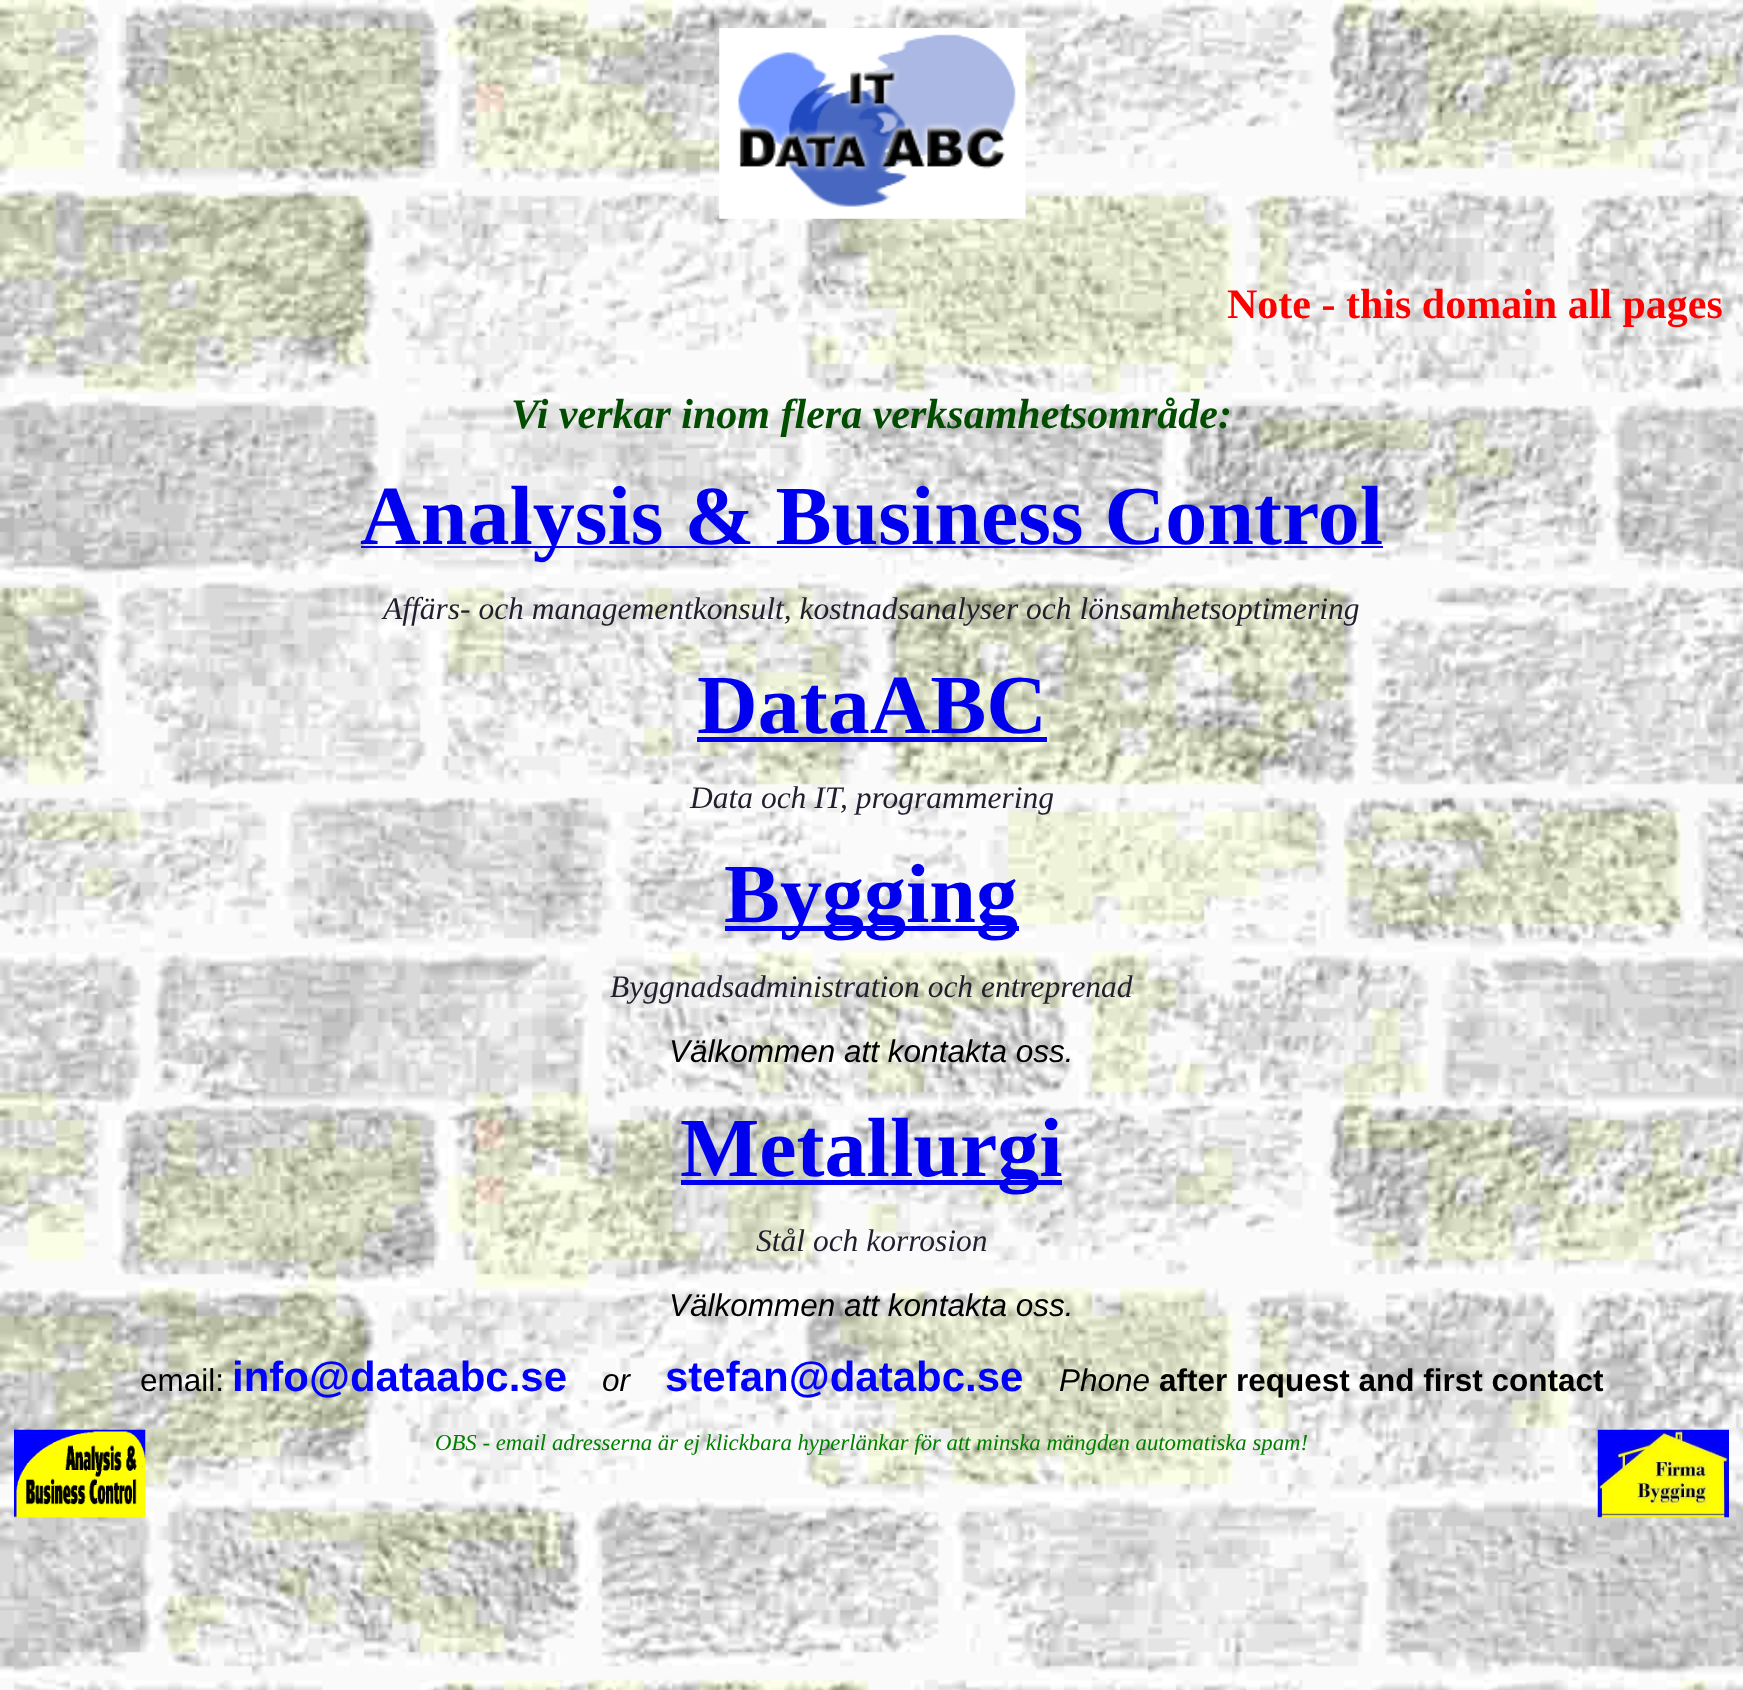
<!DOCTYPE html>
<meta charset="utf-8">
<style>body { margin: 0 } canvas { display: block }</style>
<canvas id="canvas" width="1743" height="1690"></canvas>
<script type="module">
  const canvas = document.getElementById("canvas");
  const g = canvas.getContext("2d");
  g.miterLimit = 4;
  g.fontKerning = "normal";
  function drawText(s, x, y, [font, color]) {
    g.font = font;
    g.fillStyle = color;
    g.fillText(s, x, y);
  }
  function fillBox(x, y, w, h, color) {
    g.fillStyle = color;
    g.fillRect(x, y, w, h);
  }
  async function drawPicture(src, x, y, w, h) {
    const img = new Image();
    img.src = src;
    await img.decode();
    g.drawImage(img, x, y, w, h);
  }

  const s1 = ["bold 42px Liberation Serif", "#FF0000"];
  const s2 = ["italic bold 42px Liberation Serif", "#004D00"];
  const s3 = ["bold 84px Liberation Serif", "#0000EE"];
  const s4 = ["italic 31.5px Liberation Serif", "#1F1F2E"];
  const s5 = ["italic 31.5px Liberation Sans", "#000000"];
  const s6 = ["31.5px Liberation Sans", "#000000"];
  const s7 = ["bold 42px Liberation Sans", "#0000FF"];
  const s8 = ["bold 31.5px Liberation Sans", "#000000"];
  const s9 = ["italic 22.75px Liberation Serif", "#008000"];

  fillBox(0, 0, 1743, 1690, "#FFFFFF");
  await drawPicture("pic1.png", 0, 0, 1743, 1690);
  await drawPicture("pic2.png", 719, 28, 307, 191);
  drawText("Note - this domain all pages", 1227, 318, s1);
  drawText("Vi verkar inom flera verksamhetsområde:", 511, 428, s2);
  fillBox(361, 546, 1022, 2, "#0000EE");
  drawText("Analysis & Business Control", 360, 544, s3);
  drawText("Affärs- och managementkonsult, kostnadsanalyser och lönsamhetsoptimering", 383, 619, s4);
  drawText("DataABC", 697, 733, s3);
  fillBox(697, 737, 350, 5, "#0000EE");
  drawText("Data och IT, programmering", 690, 808, s4);
  fillBox(725, 926, 294, 5, "#0000EE");
  drawText("Bygging", 724, 922, s3);
  drawText("Byggnadsadministration och entreprenad", 610, 997, s4);
  drawText("Välkommen att kontakta oss.", 669, 1062, s5);
  fillBox(681, 1180, 381, 5, "#0000EE");
  drawText("Metallurgi", 680, 1176, s3);
  drawText("Stål och korrosion", 756, 1251, s4);
  drawText("Välkommen att kontakta oss.", 669, 1316, s5);
  drawText("email:", 140, 1391, s6);
  drawText("info@dataabc.se", 232, 1391, s7);
  drawText("or", 602, 1391, s5);
  drawText("stefan@databc.se", 665, 1391, s7);
  drawText("Phone", 1059, 1391, s5);
  drawText("after request and first contact", 1159, 1391, s8);
  await drawPicture("pic3.png", 14, 1429, 132, 89);
  drawText("OBS - email adresserna är ej klickbara hyperlänkar för att minska mängden automatiska spam!", 435, 1450, s9);
  await drawPicture("pic4.png", 1597, 1429, 132, 89);
</script>
